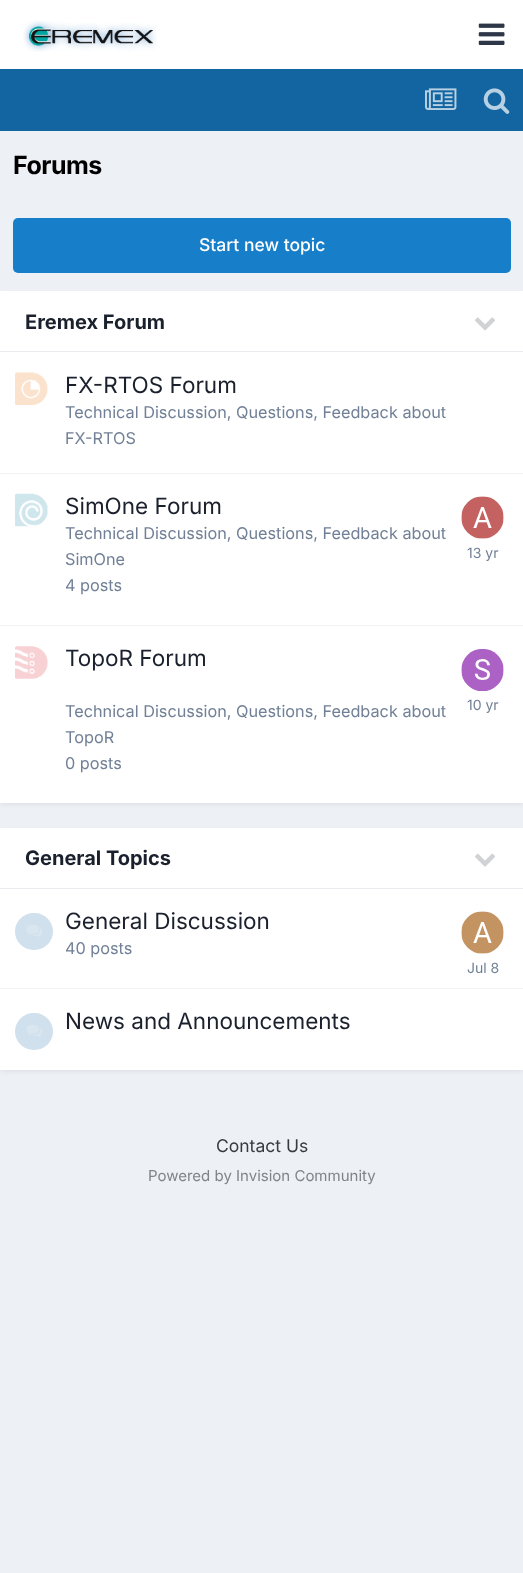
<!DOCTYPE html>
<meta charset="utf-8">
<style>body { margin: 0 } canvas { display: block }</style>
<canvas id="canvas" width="523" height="1573"></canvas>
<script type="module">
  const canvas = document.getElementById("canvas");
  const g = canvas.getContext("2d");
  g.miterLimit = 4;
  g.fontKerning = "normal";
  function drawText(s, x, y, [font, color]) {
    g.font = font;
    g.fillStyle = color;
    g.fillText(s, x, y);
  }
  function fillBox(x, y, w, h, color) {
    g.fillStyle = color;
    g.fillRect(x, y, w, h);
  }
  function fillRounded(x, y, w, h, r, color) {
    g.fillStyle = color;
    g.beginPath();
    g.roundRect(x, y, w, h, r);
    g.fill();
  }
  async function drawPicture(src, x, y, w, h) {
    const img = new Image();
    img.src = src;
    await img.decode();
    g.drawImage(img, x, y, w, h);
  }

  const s1 = ["bold 25px Inter", "#000000"];
  const s2 = ["500 17.5px Inter", "#FFFFFF"];
  const s3 = ["bold 20px Inter", "#1A202C"];
  const s4 = ["22.5px Inter", "#1A202C"];
  const s5 = ["16.25px Inter", "#718096"];
  const s6 = ["14px Inter", "#718096"];
  const s7 = ["17.5px Inter", "#353C41"];
  const s8 = ["15px Inter", "#7F8489"];

  fillBox(0, 0, 523, 1573, "#EDF0F4");
  fillBox(0, 0, 523, 69, "#FFFFFF");
  await drawPicture("pic1.png", 23, 20, 134, 32);
  await drawPicture("pic2.png", 478, 23, 27, 22);
  fillBox(0, 69, 523, 62, "#1265A1");
  await drawPicture("pic3.png", 425, 88, 32, 22);
  await drawPicture("pic4.png", 483, 88, 27, 26);
  g.letterSpacing = "-0.5px";
  drawText("Forums", 13, 174, s1);
  fillRounded(13, 218, 498, 55, 5, "#177EC9");
  g.letterSpacing = "0px";
  drawText("Start new topic", 199, 251, s2);
  g.fillStyle = "rgba(45, 55, 72, 0.1)";
  g.filter = "blur(2.5px)";
  g.beginPath();
  g.rect(1, 295, 522, 509);
  g.fill();
  g.filter = "none";
  fillBox(0, 291, 523, 512, "#FFFFFF");
  fillBox(0, 351, 523, 1, "#EAECEF");
  drawText("Eremex Forum", 25, 329, s3);
  await drawPicture("pic5.png", 475, 317, 20, 14);
  fillBox(0, 473, 523, 1, "#F1F2F5");
  await drawPicture("pic6.png", 15, 372, 33, 33);
  drawText("FX-RTOS Forum", 65, 393, s4);
  drawText("Technical Discussion, Questions, Feedback about", 65, 418, s5);
  drawText("FX-RTOS", 65, 444, s5);
  fillBox(0, 625, 523, 1, "#F1F2F5");
  await drawPicture("pic7.png", 15, 493, 33, 34);
  drawText("SimOne Forum", 65, 514, s4);
  drawText("Technical Discussion, Questions, Feedback about", 65, 539, s5);
  drawText("SimOne", 65, 565, s5);
  await drawPicture("pic8.png", 461, 496, 43, 43);
  drawText("13 yr", 467, 558, s6);
  drawText("4 posts", 65, 591, s5);
  await drawPicture("pic9.png", 15, 646, 33, 33);
  drawText("TopoR Forum", 65, 666, s4);
  drawText("Technical Discussion, Questions, Feedback about", 65, 717, s5);
  drawText("TopoR", 65, 743, s5);
  await drawPicture("pic10.png", 461, 649, 43, 42);
  drawText("10 yr", 467, 710, s6);
  drawText("0 posts", 65, 769, s5);
  g.fillStyle = "rgba(45, 55, 72, 0.1)";
  g.filter = "blur(2.5px)";
  g.beginPath();
  g.rect(1, 831, 522, 240);
  g.fill();
  g.filter = "none";
  fillBox(0, 828, 523, 242, "#FFFFFF");
  fillBox(0, 888, 523, 1, "#EAECEF");
  drawText("General Topics", 25, 865, s3);
  await drawPicture("pic11.png", 475, 853, 20, 14);
  fillBox(0, 988, 523, 1, "#F1F2F5");
  fillRounded(15, 913, 38, 37, 18.5, "#D0E0EC");
  await drawPicture("pic12.png", 26, 925, 17, 12);
  drawText("General Discussion", 65, 929, s4);
  drawText("40 posts", 65, 954, s5);
  await drawPicture("pic13.png", 461, 911, 43, 43);
  drawText("Jul 8", 467, 973, s6);
  fillRounded(15, 1013, 38, 37, 18.5, "#D0E0EC");
  await drawPicture("pic12.png", 26, 1025, 17, 12);
  drawText("News and Announcements", 65, 1029, s4);
  drawText("Contact Us", 216, 1152, s7);
  drawText("Powered by Invision Community", 148, 1181, s8);
</script>
